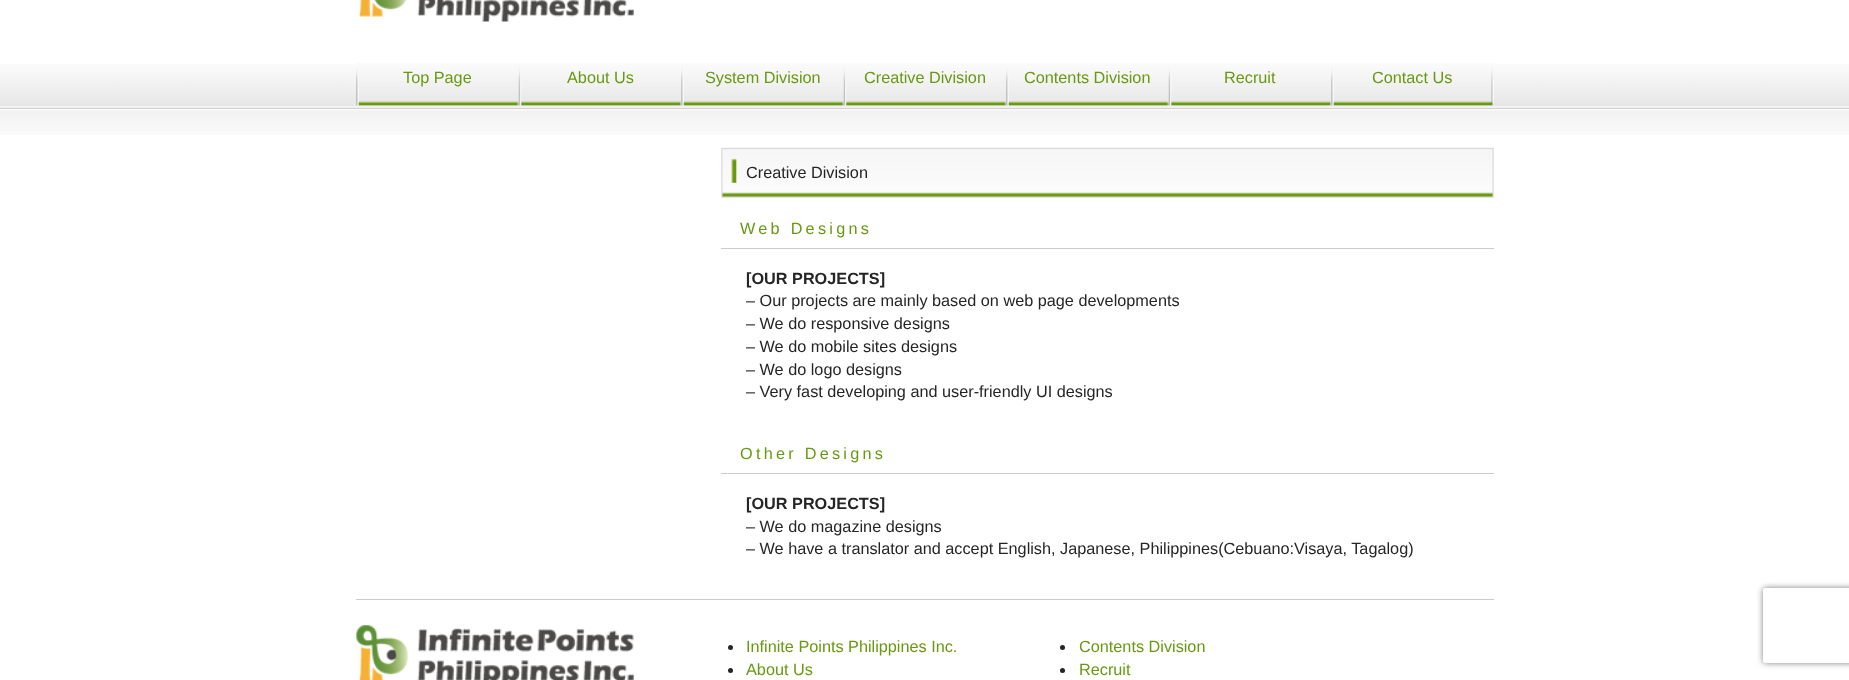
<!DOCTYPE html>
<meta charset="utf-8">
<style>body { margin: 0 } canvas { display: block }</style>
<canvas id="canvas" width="1849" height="680"></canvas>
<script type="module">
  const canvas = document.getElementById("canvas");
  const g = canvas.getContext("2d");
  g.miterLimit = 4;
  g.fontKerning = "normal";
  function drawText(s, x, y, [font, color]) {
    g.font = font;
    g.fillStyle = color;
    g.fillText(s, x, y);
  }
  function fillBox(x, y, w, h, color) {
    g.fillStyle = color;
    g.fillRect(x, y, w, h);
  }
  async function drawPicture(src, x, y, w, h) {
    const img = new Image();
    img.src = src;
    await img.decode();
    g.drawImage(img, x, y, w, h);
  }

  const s1 = ["16.25px Liberation Sans", "#689910"];
  const s2 = ["16.25px Liberation Sans", "#252525"];
  const s3 = ["bold 16.25px Liberation Sans", "#252525"];

  fillBox(0, 0, 1849, 680, "#FFFFFF");
  await drawPicture("pic1.png", 0, 64, 1849, 71);
  await drawPicture("pic2.png", 358, 0, 276, 22);
  await drawPicture("pic3.png", 356, 63, 1138, 43);
  await drawPicture("pic4.png", 356, 75, 163, 30);
  drawText("Top Page", 403, 83, s1);
  await drawPicture("pic5.png", 518, 75, 164, 30);
  drawText("About Us", 567, 83, s1);
  await drawPicture("pic6.png", 681, 74, 163, 31);
  drawText("System Division", 705, 83, s1);
  await drawPicture("pic7.png", 843, 74, 164, 31);
  drawText("Creative Division", 864, 83, s1);
  await drawPicture("pic8.png", 1006, 74, 163, 31);
  drawText("Contents Division", 1024, 83, s1);
  await drawPicture("pic7.png", 1168, 74, 164, 31);
  drawText("Recruit", 1224, 83, s1);
  await drawPicture("pic9.png", 1331, 74, 1, 31);
  drawText("Contact Us", 1372, 83, s1);
  await drawPicture("pic10.png", 721, 147, 773, 51);
  drawText("Creative Division", 746, 178, s2);
  fillBox(721, 248, 773, 1, "#CCCCCC");
  g.letterSpacing = "3.25px";
  drawText("Web Designs", 740, 234, s1);
  g.letterSpacing = "0px";
  drawText("[OUR PROJECTS]", 746, 284, s3);
  drawText("– Our projects are mainly based on web page developments", 746, 306, s2);
  drawText("– We do responsive designs", 746, 329, s2);
  drawText("– We do mobile sites designs", 746, 352, s2);
  drawText("– We do logo designs", 746, 375, s2);
  drawText("– Very fast developing and user-friendly UI designs", 746, 397, s2);
  fillBox(721, 473, 773, 1, "#CCCCCC");
  g.letterSpacing = "3.25px";
  drawText("Other Designs", 740, 459, s1);
  g.letterSpacing = "0px";
  drawText("[OUR PROJECTS]", 746, 509, s3);
  drawText("– We do magazine designs", 746, 532, s2);
  drawText("– We have a translator and accept English, Japanese, Philippines(Cebuano:Visaya, Tagalog)", 746, 554, s2);
  fillBox(356, 599, 1138, 1, "#CCCCCC");
  await drawPicture("pic11.png", 356, 625, 278, 55);
  g.fillStyle = "#252525";
  g.beginPath();
  g.arc(730.5, 647.5, 2.5, 0, Math.PI * 2);
  g.fill();
  drawText("Infinite Points Philippines Inc.", 746, 652, s1);
  g.fillStyle = "#252525";
  g.beginPath();
  g.arc(730.5, 670.5, 2.5, 0, Math.PI * 2);
  g.fill();
  drawText("About Us", 746, 675, s1);
  g.fillStyle = "#252525";
  g.beginPath();
  g.arc(1062.5, 647.5, 2.5, 0, Math.PI * 2);
  g.fill();
  drawText("Contents Division", 1079, 652, s1);
  g.fillStyle = "#252525";
  g.beginPath();
  g.arc(1062.5, 670.5, 2.5, 0, Math.PI * 2);
  g.fill();
  drawText("Recruit", 1079, 675, s1);
  g.save();
  g.beginPath();
  g.moveTo(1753, 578);
  g.lineTo(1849, 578);
  g.lineTo(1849, 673);
  g.lineTo(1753, 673);
  g.closePath();
  g.moveTo(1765.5, 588);
  g.lineTo(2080.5, 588);
  g.bezierCurveTo(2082, 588, 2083, 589, 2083, 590.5);
  g.lineTo(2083, 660.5);
  g.bezierCurveTo(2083, 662, 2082, 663, 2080.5, 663);
  g.lineTo(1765.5, 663);
  g.bezierCurveTo(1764, 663, 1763, 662, 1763, 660.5);
  g.lineTo(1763, 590.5);
  g.bezierCurveTo(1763, 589, 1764, 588, 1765.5, 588);
  g.closePath();
  g.clip("evenodd");
  g.fillStyle = "#808080";
  g.filter = "blur(3px)";
  g.beginPath();
  g.roundRect(1763, 588, 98, 75, 2.5);
  g.fill();
  g.filter = "none";
  g.restore();
</script>
